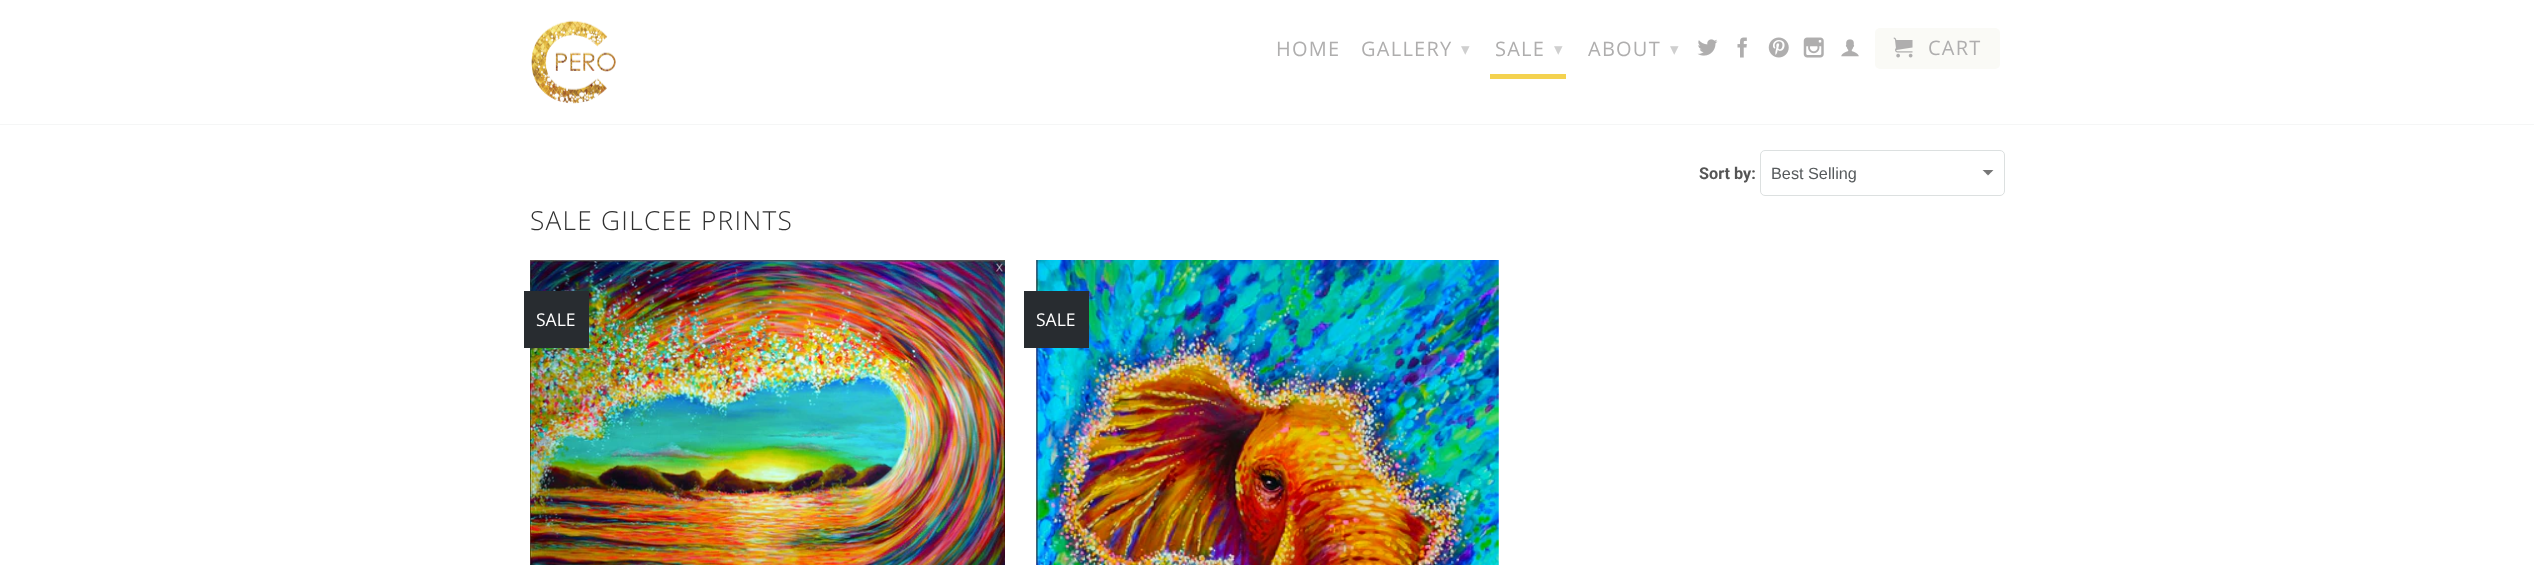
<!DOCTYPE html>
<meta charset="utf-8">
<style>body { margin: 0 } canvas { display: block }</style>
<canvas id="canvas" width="2534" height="565"></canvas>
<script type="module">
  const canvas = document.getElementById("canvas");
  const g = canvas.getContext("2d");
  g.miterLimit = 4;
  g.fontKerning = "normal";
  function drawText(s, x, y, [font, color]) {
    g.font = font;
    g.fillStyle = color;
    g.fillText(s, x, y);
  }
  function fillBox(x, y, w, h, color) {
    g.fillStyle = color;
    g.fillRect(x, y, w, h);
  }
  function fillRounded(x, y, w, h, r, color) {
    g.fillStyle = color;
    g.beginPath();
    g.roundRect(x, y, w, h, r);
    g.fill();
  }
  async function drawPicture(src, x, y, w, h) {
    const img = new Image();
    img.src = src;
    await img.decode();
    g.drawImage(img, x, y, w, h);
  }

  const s1 = ["20px Open Sans", "#AFAEAE"];
  const s2 = ["17px DejaVu Sans", "#CFCFCF"];
  const s3 = ["bold 16.25px Roboto", "#555555"];
  const s4 = ["16.25px Liberation Sans", "#565A5C"];
  const s5 = ["300 26.25px Open Sans", "#303030"];
  const s6 = ["17.5px Open Sans", "#FFFFFF"];

  fillBox(0, 0, 2534, 565, "#FFFFFF");
  fillBox(0, 124, 2534, 1, "#F5F6F6");
  await drawPicture("pic1.png", 531, 20, 85, 84);
  g.letterSpacing = "1.25px";
  drawText("HOME", 1276, 56, s1);
  drawText("GALLERY", 1361, 56, s1);
  drawText("▾", 1461, 55, s2);
  drawText("SALE", 1495, 56, s1);
  drawText("▾", 1554, 55, s2);
  fillBox(1490, 74, 76, 5, "#F4D24F");
  drawText("ABOUT", 1588, 56, s1);
  drawText("▾", 1670, 55, s2);
  await drawPicture("pic2.png", 1697, 39, 21, 17);
  await drawPicture("pic3.png", 1737, 37, 10, 21);
  await drawPicture("pic4.png", 1768, 37, 21, 21);
  await drawPicture("pic5.png", 1803, 37, 21, 21);
  await drawPicture("pic6.png", 1841, 39, 18, 18);
  fillRounded(1875, 28, 125, 41, 5, "#FAFAF6");
  await drawPicture("pic7.png", 1893, 37, 20, 21);
  drawText("CART", 1928, 55, s1);
  g.letterSpacing = "0px";
  drawText("Sort by:", 1699, 179, s3);
  await drawPicture("pic8.png", 1982, 170, 12, 6);
  g.beginPath();
  g.roundRect(1760.5, 150.5, 244, 45, 4.5);
  g.strokeStyle = "#DCE0E0";
  g.stroke();
  drawText("Best Selling", 1771, 179, s4);
  g.letterSpacing = "1.25px";
  drawText("SALE GILCEE PRINTS", 530, 230, s5);
  await drawPicture("pic9.png", 530, 260, 475, 305);
  fillBox(524, 291, 65, 57, "#282C30");
  g.letterSpacing = "0px";
  drawText("SALE", 536, 326, s6);
  await drawPicture("pic10.png", 1036, 260, 463, 305);
  fillBox(1024, 291, 65, 57, "#282C30");
  drawText("SALE", 1036, 326, s6);
</script>
